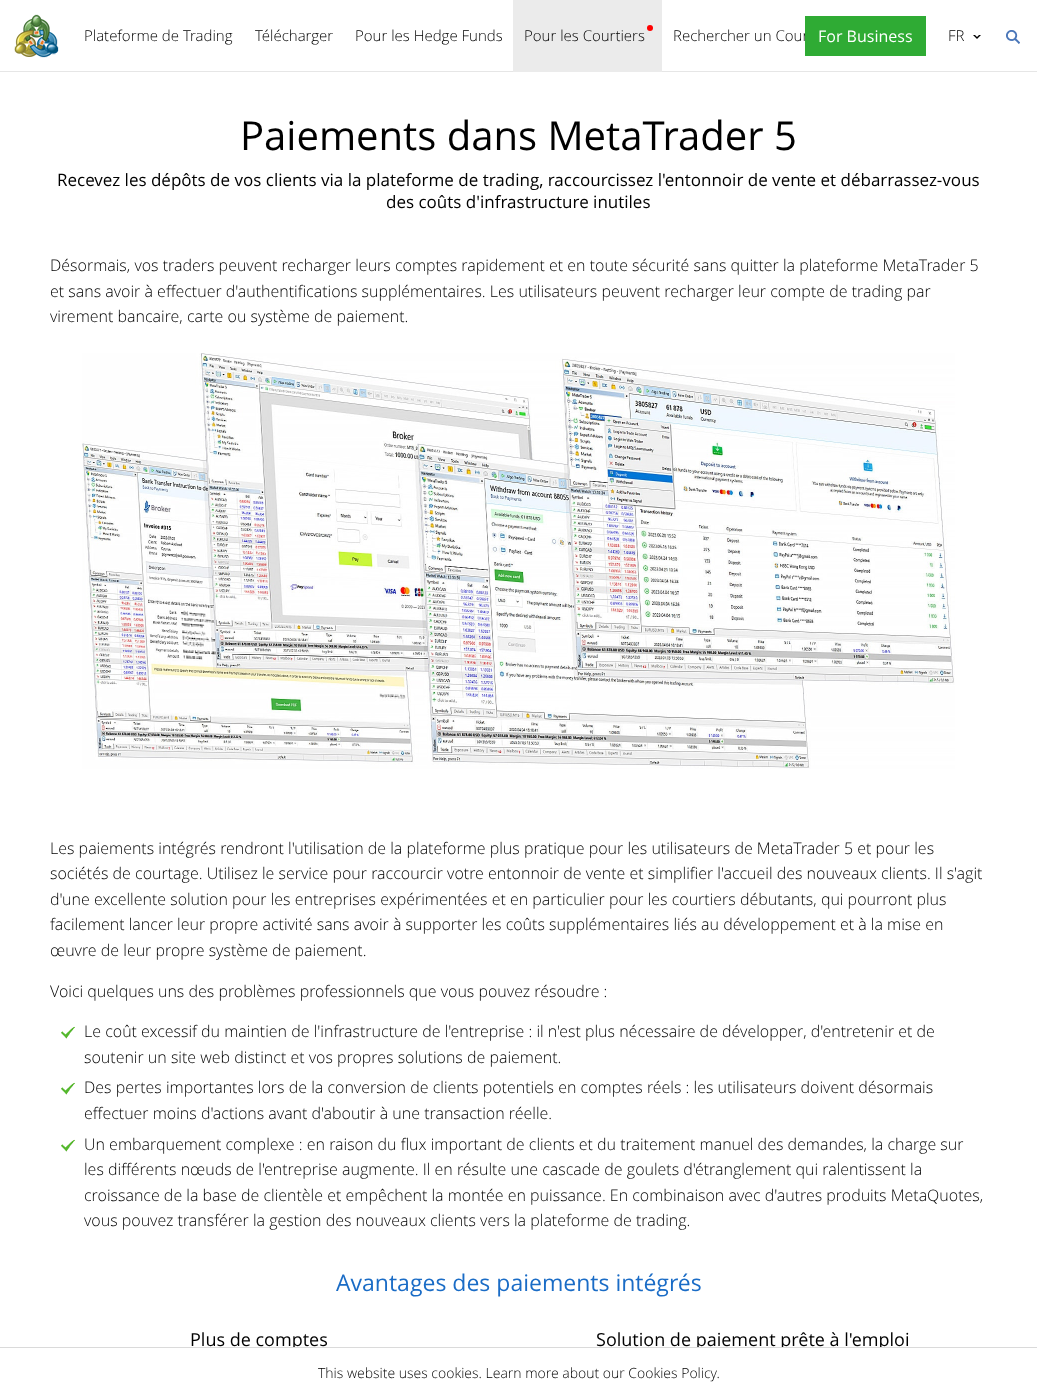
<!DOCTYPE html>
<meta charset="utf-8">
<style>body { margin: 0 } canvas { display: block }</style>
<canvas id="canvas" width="1037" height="1398"></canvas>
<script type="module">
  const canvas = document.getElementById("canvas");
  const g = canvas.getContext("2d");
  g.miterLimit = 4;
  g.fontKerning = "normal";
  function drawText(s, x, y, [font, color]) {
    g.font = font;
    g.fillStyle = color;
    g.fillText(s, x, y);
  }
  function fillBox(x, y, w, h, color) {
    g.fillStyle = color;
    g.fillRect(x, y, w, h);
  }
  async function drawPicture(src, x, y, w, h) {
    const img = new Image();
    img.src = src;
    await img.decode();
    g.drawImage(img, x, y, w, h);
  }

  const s1 = ["300 15px Open Sans", "#000000"];
  const s2 = ["16px Open Sans", "#FFFFFF"];
  const s3 = ["40px Open Sans", "#000000"];
  const s4 = ["17px Open Sans", "#000000"];
  const s5 = ["300 16px Open Sans", "#000000"];
  const s6 = ["23px Open Sans", "#1A6CC6"];
  const s7 = ["18px Open Sans", "#000000"];
  const s8 = ["300 14px Open Sans", "#000000"];

  fillBox(0, 0, 1037, 1398, "#FFFFFF");
  fillBox(0, 71, 1037, 1, "#E6E6E6");
  await drawPicture("pic1.png", 14, 14, 45, 44);
  drawText("Plateforme de Trading", 84, 41, s1);
  drawText("Télécharger", 255, 41, s1);
  drawText("Pour les Hedge Funds", 355, 41, s1);
  fillBox(513, 0, 149, 72, "#EBEBEB");
  g.fillStyle = "#FF0000";
  g.beginPath();
  g.arc(650, 28, 3, 0, Math.PI * 2);
  g.fill();
  drawText("Pour les Courtiers", 524, 41, s1);
  drawText("Rechercher un Cour", 673, 41, s1);
  fillBox(805, 16, 121, 40, "#2FAB34");
  drawText("For Business", 818, 42, s2);
  drawText("FR", 948, 41, s1);
  await drawPicture("pic2.png", 973, 35, 8, 4);
  await drawPicture("pic3.png", 1006, 30, 14, 14);
  drawText("Paiements dans MetaTrader 5", 240, 150, s3);
  drawText("Recevez les dépôts de vos clients via la plateforme de trading, raccourcissez l'entonnoir de vente et débarrassez-vous", 57, 186, s4);
  drawText("des coûts d'infrastructure inutiles", 386, 208, s4);
  drawText("Désormais, vos traders peuvent recharger leurs comptes rapidement et en toute sécurité sans quitter la plateforme MetaTrader 5", 50, 271, s5);
  drawText("et sans avoir à effectuer d'authentifications supplémentaires. Les utilisateurs peuvent recharger leur compte de trading par", 50, 297, s5);
  drawText("virement bancaire, carte ou système de paiement.", 50, 322, s5);
  await drawPicture("pic4.png", 82, 353, 873, 416);
  drawText("Les paiements intégrés rendront l'utilisation de la plateforme plus pratique pour les utilisateurs de MetaTrader 5 et pour les", 50, 854, s5);
  drawText("sociétés de courtage. Utilisez le service pour raccourcir votre entonnoir de vente et simplifier l'accueil des nouveaux clients. Il s'agit", 50, 879, s5);
  drawText("d'une excellente solution pour les entreprises expérimentées et en particulier pour les courtiers débutants, qui pourront plus", 50, 905, s5);
  drawText("facilement lancer leur propre activité sans avoir à supporter les coûts supplémentaires liés au développement et à la mise en", 50, 930, s5);
  drawText("œuvre de leur propre système de paiement.", 50, 956, s5);
  drawText("Voici quelques uns des problèmes professionnels que vous pouvez résoudre :", 50, 997, s5);
  await drawPicture("pic5.png", 61, 1026, 14, 13);
  drawText("Le coût excessif du maintien de l'infrastructure de l'entreprise : il n'est plus nécessaire de développer, d'entretenir et de", 84, 1037, s5);
  drawText("soutenir un site web distinct et vos propres solutions de paiement.", 84, 1063, s5);
  await drawPicture("pic5.png", 61, 1082, 14, 13);
  drawText("Des pertes importantes lors de la conversion de clients potentiels en comptes réels : les utilisateurs doivent désormais", 84, 1093, s5);
  drawText("effectuer moins d'actions avant d'aboutir à une transaction réelle.", 84, 1119, s5);
  await drawPicture("pic5.png", 61, 1139, 14, 13);
  drawText("Un embarquement complexe : en raison du flux important de clients et du traitement manuel des demandes, la charge sur", 84, 1150, s5);
  drawText("les différents nœuds de l'entreprise augmente. Il en résulte une cascade de goulets d'étranglement qui ralentissent la", 84, 1175, s5);
  drawText("croissance de la base de clientèle et empêchent la montée en puissance. En combinaison avec d'autres produits MetaQuotes,", 84, 1201, s5);
  drawText("vous pouvez transférer la gestion des nouveaux clients vers la plateforme de trading.", 84, 1226, s5);
  drawText("Avantages des paiements intégrés", 336, 1291, s6);
  drawText("Plus de comptes", 190, 1346, s7);
  drawText("Solution de paiement prête à l'emploi", 596, 1346, s7);
  fillBox(293, 1348, 589, 3, "#FFFFFF");
  fillBox(0, 1347, 1037, 1, "#DADADA");
  drawText("This website uses cookies. Learn more about our Cookies Policy.", 318, 1378, s8);
</script>
